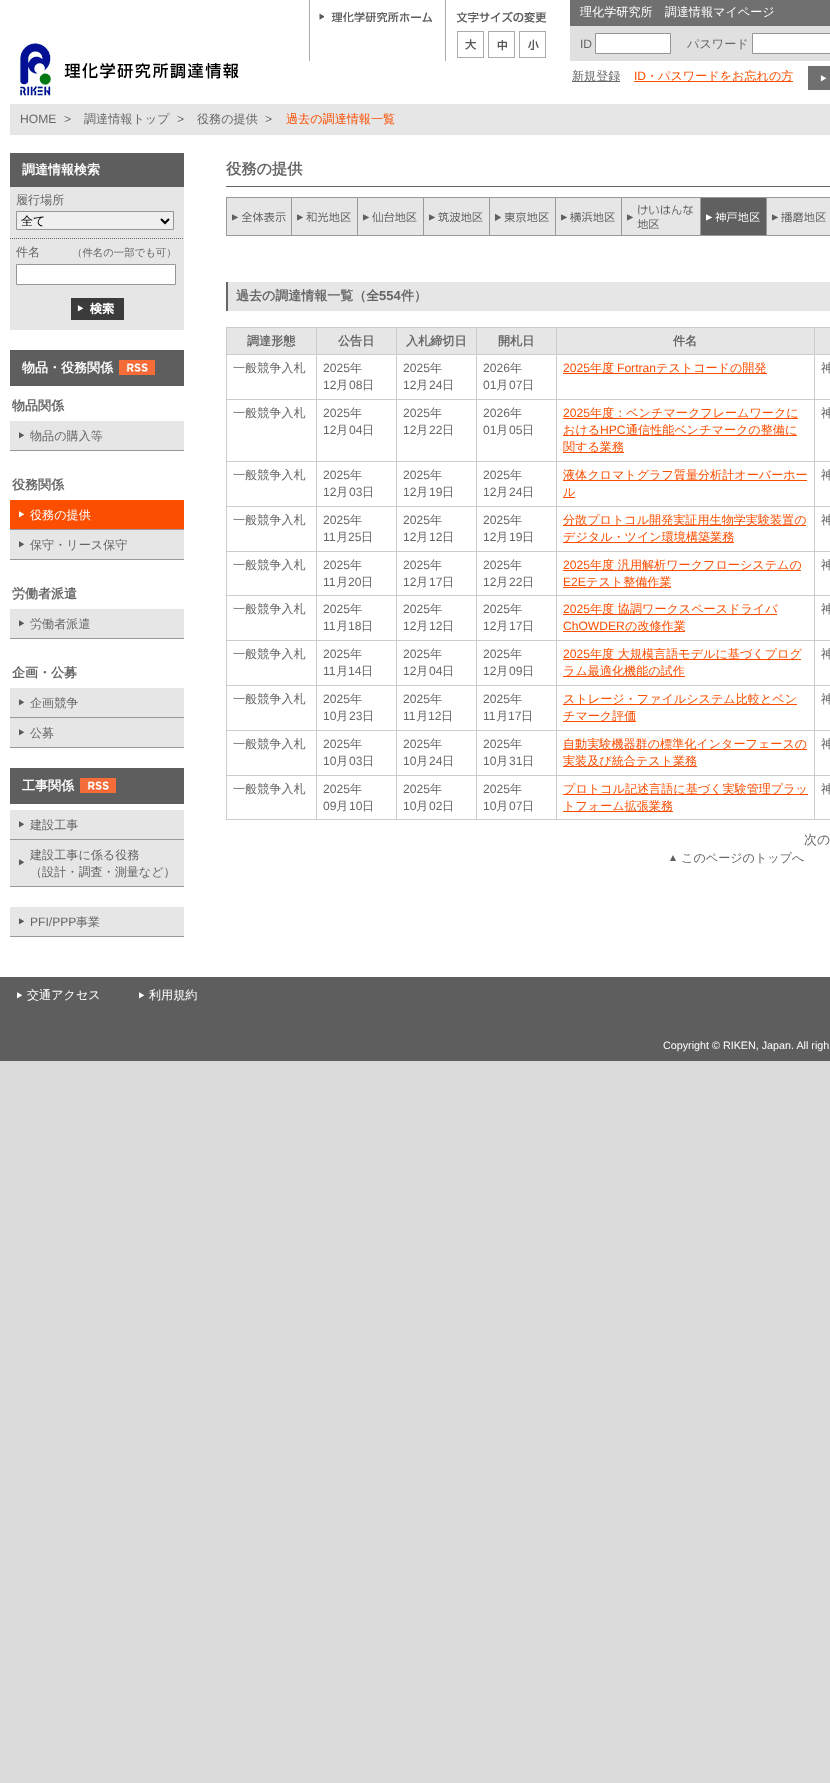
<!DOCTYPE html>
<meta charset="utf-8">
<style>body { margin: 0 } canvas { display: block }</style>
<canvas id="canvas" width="830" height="1783"></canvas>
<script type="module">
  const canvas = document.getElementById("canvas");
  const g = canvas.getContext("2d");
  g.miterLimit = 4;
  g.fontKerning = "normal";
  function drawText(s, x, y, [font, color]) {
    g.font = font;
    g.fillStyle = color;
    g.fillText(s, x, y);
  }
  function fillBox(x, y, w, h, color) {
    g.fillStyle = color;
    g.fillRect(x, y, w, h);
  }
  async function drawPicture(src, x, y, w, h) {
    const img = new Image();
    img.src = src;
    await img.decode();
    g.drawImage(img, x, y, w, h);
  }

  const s1 = ["500 12.1px WenQuanYi Zen Hei", "#FFFFFF"];
  const s2 = ["12.1px Liberation Sans", "#666666"];
  const s3 = ["500 12.1px WenQuanYi Zen Hei", "#666666"];
  const s4 = ["12.1px Liberation Sans", "#FB4E00"];
  const s5 = ["500 12.1px WenQuanYi Zen Hei", "#FB4E00"];
  const s6 = ["bold 13px WenQuanYi Zen Hei", "#FFFFFF"];
  const s7 = ["500 12.1px WenQuanYi Zen Hei", "#000000"];
  const s8 = ["500 10.4px WenQuanYi Zen Hei", "#666666"];
  const s9 = ["bold 13px WenQuanYi Zen Hei", "#666666"];
  const s10 = ["bold 15.25px WenQuanYi Zen Hei", "#666666"];
  const s11 = ["bold 13px Liberation Sans", "#666666"];
  const s12 = ["bold 12.1px WenQuanYi Zen Hei", "#666666"];
  const s13 = ["500 13px WenQuanYi Zen Hei", "#666666"];
  const s14 = ["10.75px Liberation Sans", "#FFFFFF"];

  fillBox(0, 0, 830, 1783, "#DBDBDB");
  fillBox(0, 0, 830, 977, "#FFFFFF");
  await drawPicture("pic1.png", 20, 43, 219, 53);
  fillBox(309, 0, 1, 61, "#ABABAB");
  await drawPicture("pic2.png", 319, 12, 114, 10);
  fillBox(445, 0, 1, 61, "#ABABAB");
  await drawPicture("pic3.png", 456, 11, 91, 12);
  await drawPicture("pic4.png", 457, 31, 27, 27);
  await drawPicture("pic5.png", 488, 31, 27, 27);
  await drawPicture("pic6.png", 519, 31, 27, 27);
  fillBox(570, 0, 260, 26, "#707070");
  drawText("理化学研究所　調達情報マイページ", 580, 16, s1);
  fillBox(570, 26, 260, 35, "#E0E0E0");
  drawText("ID", 580, 48, s2);
  g.fillStyle = "#FFFFFF";
  g.beginPath();
  g.rect(595.5, 33.5, 75, 20);
  g.fill();
  g.strokeStyle = "#969696";
  g.stroke();
  drawText("パスワード", 687, 48, s3);
  g.fillStyle = "#FFFFFF";
  g.beginPath();
  g.rect(752.5, 33.5, 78, 20);
  g.fill();
  g.stroke();
  fillBox(572, 81, 48, 1, "#666666");
  drawText("新規登録", 572, 80, s3);
  drawText("ID", 634, 80, s4);
  fillBox(634, 81, 159, 1, "#FB4E00");
  drawText("・パスワードをお忘れの方", 646, 80, s5);
  await drawPicture("pic7.png", 808, 66, 22, 24);
  fillBox(10, 104, 820, 31, "#E6E6E6");
  drawText("HOME", 20, 123, s2);
  drawText(">", 64, 123, s2);
  drawText("調達情報トップ", 84, 123, s3);
  drawText(">", 177, 123, s2);
  drawText("役務の提供", 197, 123, s3);
  drawText(">", 265, 123, s2);
  drawText("過去の調達情報一覧", 286, 123, s5);
  fillBox(10, 153, 174, 34, "#5E5E5E");
  drawText("調達情報検索", 22, 174, s6);
  fillBox(10, 187, 174, 143, "#E6E6E6");
  g.beginPath();
  g.moveTo(10, 238.5);
  g.lineTo(184, 238.5);
  g.strokeStyle = "#666666";
  g.setLineDash([1, 1]);
  g.stroke();
  drawText("履行場所", 16, 204, s3);
  g.fillStyle = "#EFEFEF";
  g.beginPath();
  g.rect(16.5, 211.5, 157, 18);
  g.fill();
  g.strokeStyle = "#969696";
  g.setLineDash([]);
  g.stroke();
  g.beginPath();
  g.moveTo(161, 219);
  g.lineTo(165, 223);
  g.lineTo(169, 219);
  g.strokeStyle = "#000000";
  g.lineWidth = 2;
  g.stroke();
  drawText("全て", 21, 225, s7);
  drawText("件名", 16, 256, s3);
  drawText("（件名の一部でも可）", 72, 256, s8);
  g.fillStyle = "#FFFFFF";
  g.beginPath();
  g.rect(16.5, 264.5, 159, 20);
  g.fill();
  g.strokeStyle = "#969696";
  g.lineWidth = 1;
  g.stroke();
  await drawPicture("pic8.png", 71, 298, 53, 22);
  fillBox(10, 350, 174, 36, "#5E5E5E");
  drawText("物品・役務関係", 22, 372, s6);
  await drawPicture("pic9.png", 119, 360, 36, 15);
  drawText("物品関係", 12, 410, s9);
  fillBox(10, 450, 174, 1, "#999999");
  fillBox(10, 421, 174, 29, "#E6E6E6");
  await drawPicture("pic10.png", 19, 432, 5, 7);
  drawText("物品の購入等", 30, 440, s3);
  drawText("役務関係", 12, 489, s9);
  fillBox(10, 529, 174, 1, "#999999");
  fillBox(10, 500, 174, 29, "#FB4E00");
  await drawPicture("pic11.png", 19, 511, 5, 7);
  drawText("役務の提供", 30, 519, s1);
  fillBox(10, 559, 174, 1, "#999999");
  fillBox(10, 530, 174, 29, "#E6E6E6");
  await drawPicture("pic10.png", 19, 541, 5, 7);
  drawText("保守・リース保守", 30, 549, s3);
  drawText("労働者派遣", 12, 598, s9);
  fillBox(10, 638, 174, 1, "#999999");
  fillBox(10, 609, 174, 29, "#E6E6E6");
  await drawPicture("pic10.png", 19, 620, 5, 7);
  drawText("労働者派遣", 30, 628, s3);
  drawText("企画・公募", 12, 677, s9);
  fillBox(10, 717, 174, 1, "#999999");
  fillBox(10, 688, 174, 29, "#E6E6E6");
  await drawPicture("pic10.png", 19, 699, 5, 7);
  drawText("企画競争", 30, 707, s3);
  fillBox(10, 747, 174, 1, "#999999");
  fillBox(10, 718, 174, 29, "#E6E6E6");
  await drawPicture("pic10.png", 19, 729, 5, 7);
  drawText("公募", 30, 737, s3);
  fillBox(10, 768, 174, 36, "#5E5E5E");
  drawText("工事関係", 22, 790, s6);
  await drawPicture("pic9.png", 80, 778, 36, 15);
  fillBox(10, 839, 174, 1, "#999999");
  fillBox(10, 810, 174, 29, "#E6E6E6");
  await drawPicture("pic10.png", 19, 821, 5, 7);
  drawText("建設工事", 30, 829, s3);
  fillBox(10, 886, 174, 1, "#999999");
  fillBox(10, 840, 174, 46, "#E6E6E6");
  await drawPicture("pic10.png", 19, 859, 5, 7);
  drawText("建設工事に係る役務", 30, 859, s3);
  drawText("（設計・調査・測量など）", 30, 876, s3);
  fillBox(10, 936, 174, 1, "#999999");
  fillBox(10, 907, 174, 29, "#E6E6E6");
  await drawPicture("pic10.png", 19, 918, 5, 7);
  drawText("PFI/PPP", 30, 926, s2);
  drawText("事業", 76, 926, s3);
  fillBox(226, 186, 604, 1, "#666666");
  drawText("役務の提供", 226, 174, s10);
  await drawPicture("pic12.png", 226, 197, 604, 39);
  await drawPicture("pic13.png", 701, 198, 65, 37);
  fillBox(228, 282, 602, 29, "#E6E6E6");
  fillBox(226, 282, 2, 29, "#666666");
  drawText("過去の調達情報一覧（全", 236, 300, s9);
  drawText("554", 379, 300, s11);
  drawText("件）", 401, 300, s9);
  fillBox(226, 327, 604, 1, "#CCCCCC");
  fillBox(226, 819, 604, 1, "#CCCCCC");
  fillBox(226, 327, 1, 493, "#CCCCCC");
  fillBox(227, 328, 89, 26, "#E6E6E6");
  drawText("調達形態", 247, 345, s12);
  fillBox(317, 328, 79, 26, "#E6E6E6");
  fillBox(814, 354, 16, 1, "#CCCCCC");
  fillBox(814, 399, 16, 1, "#CCCCCC");
  fillBox(814, 461, 16, 1, "#CCCCCC");
  fillBox(814, 506, 16, 1, "#CCCCCC");
  fillBox(814, 551, 16, 1, "#CCCCCC");
  fillBox(814, 595, 16, 1, "#CCCCCC");
  fillBox(814, 640, 16, 1, "#CCCCCC");
  fillBox(814, 685, 16, 1, "#CCCCCC");
  fillBox(814, 730, 16, 1, "#CCCCCC");
  fillBox(814, 775, 16, 1, "#CCCCCC");
  fillBox(814, 775, 1, 45, "#CCCCCC");
  fillBox(556, 775, 259, 1, "#CCCCCC");
  fillBox(814, 730, 1, 46, "#CCCCCC");
  fillBox(556, 730, 259, 1, "#CCCCCC");
  fillBox(814, 685, 1, 46, "#CCCCCC");
  fillBox(556, 685, 259, 1, "#CCCCCC");
  fillBox(814, 640, 1, 46, "#CCCCCC");
  fillBox(556, 640, 259, 1, "#CCCCCC");
  fillBox(814, 595, 1, 46, "#CCCCCC");
  fillBox(556, 595, 259, 1, "#CCCCCC");
  fillBox(814, 551, 1, 45, "#CCCCCC");
  fillBox(556, 551, 259, 1, "#CCCCCC");
  fillBox(814, 506, 1, 46, "#CCCCCC");
  fillBox(556, 506, 259, 1, "#CCCCCC");
  fillBox(814, 461, 1, 46, "#CCCCCC");
  fillBox(556, 461, 259, 1, "#CCCCCC");
  fillBox(814, 399, 1, 63, "#CCCCCC");
  fillBox(556, 399, 259, 1, "#CCCCCC");
  fillBox(814, 354, 1, 46, "#CCCCCC");
  fillBox(556, 354, 259, 1, "#CCCCCC");
  fillBox(556, 775, 1, 45, "#CCCCCC");
  fillBox(476, 775, 81, 1, "#CCCCCC");
  fillBox(556, 730, 1, 46, "#CCCCCC");
  fillBox(476, 730, 81, 1, "#CCCCCC");
  fillBox(556, 685, 1, 46, "#CCCCCC");
  fillBox(476, 685, 81, 1, "#CCCCCC");
  fillBox(556, 640, 1, 46, "#CCCCCC");
  fillBox(476, 640, 81, 1, "#CCCCCC");
  fillBox(556, 595, 1, 46, "#CCCCCC");
  fillBox(476, 595, 81, 1, "#CCCCCC");
  fillBox(556, 551, 1, 45, "#CCCCCC");
  fillBox(476, 551, 81, 1, "#CCCCCC");
  fillBox(556, 506, 1, 46, "#CCCCCC");
  fillBox(476, 506, 81, 1, "#CCCCCC");
  fillBox(556, 461, 1, 46, "#CCCCCC");
  fillBox(476, 461, 81, 1, "#CCCCCC");
  fillBox(556, 399, 1, 63, "#CCCCCC");
  fillBox(476, 399, 81, 1, "#CCCCCC");
  fillBox(556, 354, 1, 46, "#CCCCCC");
  fillBox(476, 354, 81, 1, "#CCCCCC");
  fillBox(476, 775, 1, 45, "#CCCCCC");
  fillBox(396, 775, 81, 1, "#CCCCCC");
  fillBox(476, 730, 1, 46, "#CCCCCC");
  fillBox(396, 730, 81, 1, "#CCCCCC");
  fillBox(476, 685, 1, 46, "#CCCCCC");
  fillBox(396, 685, 81, 1, "#CCCCCC");
  fillBox(476, 640, 1, 46, "#CCCCCC");
  fillBox(396, 640, 81, 1, "#CCCCCC");
  fillBox(476, 595, 1, 46, "#CCCCCC");
  fillBox(396, 595, 81, 1, "#CCCCCC");
  fillBox(476, 551, 1, 45, "#CCCCCC");
  fillBox(396, 551, 81, 1, "#CCCCCC");
  fillBox(476, 506, 1, 46, "#CCCCCC");
  fillBox(396, 506, 81, 1, "#CCCCCC");
  fillBox(476, 461, 1, 46, "#CCCCCC");
  fillBox(396, 461, 81, 1, "#CCCCCC");
  fillBox(476, 399, 1, 63, "#CCCCCC");
  fillBox(396, 399, 81, 1, "#CCCCCC");
  fillBox(476, 354, 1, 46, "#CCCCCC");
  fillBox(396, 354, 81, 1, "#CCCCCC");
  fillBox(396, 775, 1, 45, "#CCCCCC");
  fillBox(316, 775, 81, 1, "#CCCCCC");
  fillBox(396, 730, 1, 46, "#CCCCCC");
  fillBox(316, 730, 81, 1, "#CCCCCC");
  fillBox(396, 685, 1, 46, "#CCCCCC");
  fillBox(316, 685, 81, 1, "#CCCCCC");
  fillBox(396, 640, 1, 46, "#CCCCCC");
  fillBox(316, 640, 81, 1, "#CCCCCC");
  fillBox(396, 595, 1, 46, "#CCCCCC");
  fillBox(316, 595, 81, 1, "#CCCCCC");
  fillBox(396, 551, 1, 45, "#CCCCCC");
  fillBox(316, 551, 81, 1, "#CCCCCC");
  fillBox(396, 506, 1, 46, "#CCCCCC");
  fillBox(316, 506, 81, 1, "#CCCCCC");
  fillBox(396, 461, 1, 46, "#CCCCCC");
  fillBox(316, 461, 81, 1, "#CCCCCC");
  fillBox(396, 399, 1, 63, "#CCCCCC");
  fillBox(316, 399, 81, 1, "#CCCCCC");
  fillBox(396, 354, 1, 46, "#CCCCCC");
  fillBox(316, 354, 81, 1, "#CCCCCC");
  fillBox(316, 775, 1, 45, "#CCCCCC");
  fillBox(226, 775, 91, 1, "#CCCCCC");
  fillBox(316, 730, 1, 46, "#CCCCCC");
  fillBox(226, 730, 91, 1, "#CCCCCC");
  fillBox(316, 685, 1, 46, "#CCCCCC");
  fillBox(226, 685, 91, 1, "#CCCCCC");
  fillBox(316, 640, 1, 46, "#CCCCCC");
  fillBox(226, 640, 91, 1, "#CCCCCC");
  fillBox(316, 595, 1, 46, "#CCCCCC");
  fillBox(226, 595, 91, 1, "#CCCCCC");
  fillBox(316, 551, 1, 45, "#CCCCCC");
  fillBox(226, 551, 91, 1, "#CCCCCC");
  fillBox(316, 506, 1, 46, "#CCCCCC");
  fillBox(226, 506, 91, 1, "#CCCCCC");
  fillBox(316, 461, 1, 46, "#CCCCCC");
  fillBox(226, 461, 91, 1, "#CCCCCC");
  fillBox(316, 399, 1, 63, "#CCCCCC");
  fillBox(226, 399, 91, 1, "#CCCCCC");
  fillBox(316, 354, 1, 46, "#CCCCCC");
  fillBox(226, 354, 91, 1, "#CCCCCC");
  fillBox(316, 327, 1, 28, "#CCCCCC");
  drawText("公告日", 338, 345, s12);
  fillBox(397, 328, 79, 26, "#E6E6E6");
  fillBox(396, 327, 1, 28, "#CCCCCC");
  drawText("入札締切日", 406, 345, s12);
  fillBox(477, 328, 79, 26, "#E6E6E6");
  fillBox(476, 327, 1, 28, "#CCCCCC");
  drawText("開札日", 498, 345, s12);
  fillBox(557, 328, 257, 26, "#E6E6E6");
  fillBox(556, 327, 1, 28, "#CCCCCC");
  drawText("件名", 673, 345, s12);
  fillBox(815, 328, 15, 26, "#E6E6E6");
  fillBox(814, 327, 1, 28, "#CCCCCC");
  drawText("一般競争入札", 233, 372, s3);
  drawText("2025", 323, 372, s2);
  drawText("年", 350, 372, s3);
  drawText("12", 323, 389, s2);
  drawText("月", 336, 389, s3);
  drawText("08", 349, 389, s2);
  drawText("日", 362, 389, s3);
  drawText("2025", 403, 372, s2);
  drawText("年", 430, 372, s3);
  drawText("12", 403, 389, s2);
  drawText("月", 416, 389, s3);
  drawText("24", 429, 389, s2);
  drawText("日", 442, 389, s3);
  drawText("2026", 483, 372, s2);
  drawText("年", 510, 372, s3);
  drawText("01", 483, 389, s2);
  drawText("月", 496, 389, s3);
  drawText("07", 509, 389, s2);
  drawText("日", 522, 389, s3);
  drawText("2025", 563, 372, s4);
  fillBox(563, 373, 204, 1, "#FB4E00");
  drawText("年度", 590, 372, s5);
  drawText("Fortran", 617, 372, s4);
  drawText("テストコードの開発", 656, 372, s5);
  drawText("神", 821, 372, s3);
  drawText("一般競争入札", 233, 417, s3);
  drawText("2025", 323, 417, s2);
  drawText("年", 350, 417, s3);
  drawText("12", 323, 434, s2);
  drawText("月", 336, 434, s3);
  drawText("04", 349, 434, s2);
  drawText("日", 362, 434, s3);
  drawText("2025", 403, 417, s2);
  drawText("年", 430, 417, s3);
  drawText("12", 403, 434, s2);
  drawText("月", 416, 434, s3);
  drawText("22", 429, 434, s2);
  drawText("日", 442, 434, s3);
  drawText("2026", 483, 417, s2);
  drawText("年", 510, 417, s3);
  drawText("01", 483, 434, s2);
  drawText("月", 496, 434, s3);
  drawText("05", 509, 434, s2);
  drawText("日", 522, 434, s3);
  drawText("2025", 563, 417, s4);
  fillBox(563, 418, 235, 1, "#FB4E00");
  drawText("年度：ベンチマークフレームワークに", 590, 417, s5);
  fillBox(563, 435, 234, 1, "#FB4E00");
  drawText("おける", 563, 434, s5);
  drawText("HPC", 600, 434, s4);
  drawText("通信性能ベンチマークの整備に", 626, 434, s5);
  fillBox(563, 452, 61, 1, "#FB4E00");
  drawText("関する業務", 563, 451, s5);
  drawText("神", 821, 417, s3);
  drawText("一般競争入札", 233, 479, s3);
  drawText("2025", 323, 479, s2);
  drawText("年", 350, 479, s3);
  drawText("12", 323, 496, s2);
  drawText("月", 336, 496, s3);
  drawText("03", 349, 496, s2);
  drawText("日", 362, 496, s3);
  drawText("2025", 403, 479, s2);
  drawText("年", 430, 479, s3);
  drawText("12", 403, 496, s2);
  drawText("月", 416, 496, s3);
  drawText("19", 429, 496, s2);
  drawText("日", 442, 496, s3);
  drawText("2025", 483, 479, s2);
  drawText("年", 510, 479, s3);
  drawText("12", 483, 496, s2);
  drawText("月", 496, 496, s3);
  drawText("24", 509, 496, s2);
  drawText("日", 522, 496, s3);
  fillBox(563, 480, 244, 1, "#FB4E00");
  drawText("液体クロマトグラフ質量分析計オーバーホー", 563, 479, s5);
  drawText("ル", 563, 496, s5);
  fillBox(563, 497, 12, 1, "#FB4E00");
  drawText("神", 821, 479, s3);
  drawText("一般競争入札", 233, 524, s3);
  drawText("2025", 323, 524, s2);
  drawText("年", 350, 524, s3);
  drawText("11", 323, 541, s2);
  drawText("月", 336, 541, s3);
  drawText("25", 348, 541, s2);
  drawText("日", 361, 541, s3);
  drawText("2025", 403, 524, s2);
  drawText("年", 430, 524, s3);
  drawText("12", 403, 541, s2);
  drawText("月", 416, 541, s3);
  drawText("12", 429, 541, s2);
  drawText("日", 442, 541, s3);
  drawText("2025", 483, 524, s2);
  drawText("年", 510, 524, s3);
  drawText("12", 483, 541, s2);
  drawText("月", 496, 541, s3);
  drawText("19", 509, 541, s2);
  drawText("日", 522, 541, s3);
  fillBox(563, 525, 243, 1, "#FB4E00");
  drawText("分散プロトコル開発実証用生物学実験装置の", 563, 524, s5);
  fillBox(563, 542, 171, 1, "#FB4E00");
  drawText("デジタル・ツイン環境構築業務", 563, 541, s5);
  drawText("神", 821, 524, s3);
  drawText("一般競争入札", 233, 569, s3);
  drawText("2025", 323, 569, s2);
  drawText("年", 350, 569, s3);
  drawText("11", 323, 586, s2);
  drawText("月", 336, 586, s3);
  drawText("20", 348, 586, s2);
  drawText("日", 361, 586, s3);
  drawText("2025", 403, 569, s2);
  drawText("年", 430, 569, s3);
  drawText("12", 403, 586, s2);
  drawText("月", 416, 586, s3);
  drawText("17", 429, 586, s2);
  drawText("日", 442, 586, s3);
  drawText("2025", 483, 569, s2);
  drawText("年", 510, 569, s3);
  drawText("12", 483, 586, s2);
  drawText("月", 496, 586, s3);
  drawText("22", 509, 586, s2);
  drawText("日", 522, 586, s3);
  drawText("2025", 563, 569, s4);
  fillBox(563, 570, 238, 1, "#FB4E00");
  drawText("年度 汎用解析ワークフローシステムの", 590, 569, s5);
  drawText("E2E", 563, 586, s4);
  fillBox(563, 587, 108, 1, "#FB4E00");
  drawText("テスト整備作業", 586, 586, s5);
  drawText("神", 821, 569, s3);
  drawText("一般競争入札", 233, 613, s3);
  drawText("2025", 323, 613, s2);
  drawText("年", 350, 613, s3);
  drawText("11", 323, 630, s2);
  drawText("月", 336, 630, s3);
  drawText("18", 348, 630, s2);
  drawText("日", 361, 630, s3);
  drawText("2025", 403, 613, s2);
  drawText("年", 430, 613, s3);
  drawText("12", 403, 630, s2);
  drawText("月", 416, 630, s3);
  drawText("12", 429, 630, s2);
  drawText("日", 442, 630, s3);
  drawText("2025", 483, 613, s2);
  drawText("年", 510, 613, s3);
  drawText("12", 483, 630, s2);
  drawText("月", 496, 630, s3);
  drawText("17", 509, 630, s2);
  drawText("日", 522, 630, s3);
  drawText("2025", 563, 613, s4);
  fillBox(563, 614, 214, 1, "#FB4E00");
  drawText("年度 協調ワークスペースドライバ", 590, 613, s5);
  drawText("ChOWDER", 563, 630, s4);
  fillBox(563, 631, 122, 1, "#FB4E00");
  drawText("の改修作業", 625, 630, s5);
  drawText("神", 821, 613, s3);
  drawText("一般競争入札", 233, 658, s3);
  drawText("2025", 323, 658, s2);
  drawText("年", 350, 658, s3);
  drawText("11", 323, 675, s2);
  drawText("月", 336, 675, s3);
  drawText("14", 348, 675, s2);
  drawText("日", 361, 675, s3);
  drawText("2025", 403, 658, s2);
  drawText("年", 430, 658, s3);
  drawText("12", 403, 675, s2);
  drawText("月", 416, 675, s3);
  drawText("04", 429, 675, s2);
  drawText("日", 442, 675, s3);
  drawText("2025", 483, 658, s2);
  drawText("年", 510, 658, s3);
  drawText("12", 483, 675, s2);
  drawText("月", 496, 675, s3);
  drawText("09", 509, 675, s2);
  drawText("日", 522, 675, s3);
  drawText("2025", 563, 658, s4);
  fillBox(563, 659, 238, 1, "#FB4E00");
  drawText("年度 大規模言語モデルに基づくプログ", 590, 658, s5);
  fillBox(563, 676, 122, 1, "#FB4E00");
  drawText("ラム最適化機能の試作", 563, 675, s5);
  drawText("神", 821, 658, s3);
  drawText("一般競争入札", 233, 703, s3);
  drawText("2025", 323, 703, s2);
  drawText("年", 350, 703, s3);
  drawText("10", 323, 720, s2);
  drawText("月", 336, 720, s3);
  drawText("23", 349, 720, s2);
  drawText("日", 362, 720, s3);
  drawText("2025", 403, 703, s2);
  drawText("年", 430, 703, s3);
  drawText("11", 403, 720, s2);
  drawText("月", 416, 720, s3);
  drawText("12", 428, 720, s2);
  drawText("日", 441, 720, s3);
  drawText("2025", 483, 703, s2);
  drawText("年", 510, 703, s3);
  drawText("11", 483, 720, s2);
  drawText("月", 496, 720, s3);
  drawText("17", 508, 720, s2);
  drawText("日", 521, 720, s3);
  fillBox(563, 704, 234, 1, "#FB4E00");
  drawText("ストレージ・ファイルシステム比較とベン", 563, 703, s5);
  fillBox(563, 721, 73, 1, "#FB4E00");
  drawText("チマーク評価", 563, 720, s5);
  drawText("神", 821, 703, s3);
  drawText("一般競争入札", 233, 748, s3);
  drawText("2025", 323, 748, s2);
  drawText("年", 350, 748, s3);
  drawText("10", 323, 765, s2);
  drawText("月", 336, 765, s3);
  drawText("03", 349, 765, s2);
  drawText("日", 362, 765, s3);
  drawText("2025", 403, 748, s2);
  drawText("年", 430, 748, s3);
  drawText("10", 403, 765, s2);
  drawText("月", 416, 765, s3);
  drawText("24", 429, 765, s2);
  drawText("日", 442, 765, s3);
  drawText("2025", 483, 748, s2);
  drawText("年", 510, 748, s3);
  drawText("10", 483, 765, s2);
  drawText("月", 496, 765, s3);
  drawText("31", 509, 765, s2);
  drawText("日", 522, 765, s3);
  fillBox(563, 749, 244, 1, "#FB4E00");
  drawText("自動実験機器群の標準化インターフェースの", 563, 748, s5);
  fillBox(563, 766, 134, 1, "#FB4E00");
  drawText("実装及び統合テスト業務", 563, 765, s5);
  drawText("神", 821, 748, s3);
  drawText("一般競争入札", 233, 793, s3);
  drawText("2025", 323, 793, s2);
  drawText("年", 350, 793, s3);
  drawText("09", 323, 810, s2);
  drawText("月", 336, 810, s3);
  drawText("10", 349, 810, s2);
  drawText("日", 362, 810, s3);
  drawText("2025", 403, 793, s2);
  drawText("年", 430, 793, s3);
  drawText("10", 403, 810, s2);
  drawText("月", 416, 810, s3);
  drawText("02", 429, 810, s2);
  drawText("日", 442, 810, s3);
  drawText("2025", 483, 793, s2);
  drawText("年", 510, 793, s3);
  drawText("10", 483, 810, s2);
  drawText("月", 496, 810, s3);
  drawText("07", 509, 810, s2);
  drawText("日", 522, 810, s3);
  fillBox(563, 794, 245, 1, "#FB4E00");
  drawText("プロトコル記述言語に基づく実験管理プラッ", 563, 793, s5);
  fillBox(563, 811, 110, 1, "#FB4E00");
  drawText("トフォーム拡張業務", 563, 810, s5);
  drawText("神", 821, 793, s3);
  drawText("次の", 804, 844, s13);
  await drawPicture("pic14.png", 670, 855, 6, 6);
  drawText("このページのトップへ", 681, 862, s3);
  fillBox(0, 977, 830, 84, "#5E5E5E");
  await drawPicture("pic15.png", 17, 992, 5, 7);
  drawText("交通アクセス", 27, 999, s1);
  await drawPicture("pic15.png", 139, 992, 5, 7);
  drawText("利用規約", 149, 999, s1);
  drawText("Copyright © RIKEN, Japan. All righ", 663, 1049, s14);
</script>
